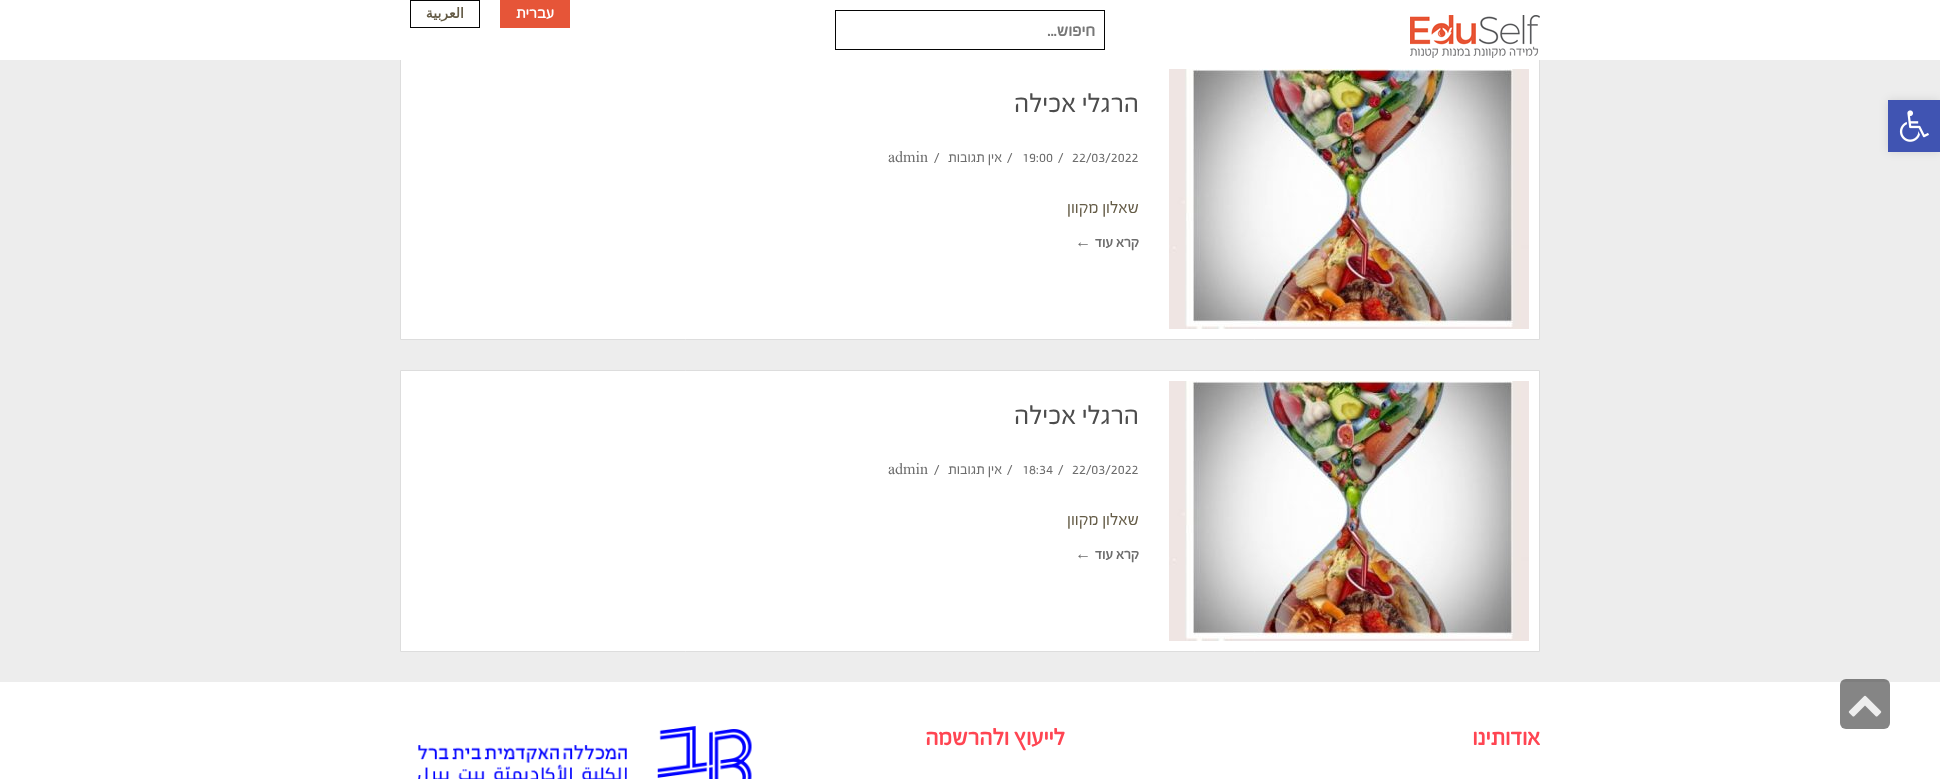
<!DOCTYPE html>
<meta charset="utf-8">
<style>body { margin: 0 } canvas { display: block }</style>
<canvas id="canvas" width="1940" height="779"></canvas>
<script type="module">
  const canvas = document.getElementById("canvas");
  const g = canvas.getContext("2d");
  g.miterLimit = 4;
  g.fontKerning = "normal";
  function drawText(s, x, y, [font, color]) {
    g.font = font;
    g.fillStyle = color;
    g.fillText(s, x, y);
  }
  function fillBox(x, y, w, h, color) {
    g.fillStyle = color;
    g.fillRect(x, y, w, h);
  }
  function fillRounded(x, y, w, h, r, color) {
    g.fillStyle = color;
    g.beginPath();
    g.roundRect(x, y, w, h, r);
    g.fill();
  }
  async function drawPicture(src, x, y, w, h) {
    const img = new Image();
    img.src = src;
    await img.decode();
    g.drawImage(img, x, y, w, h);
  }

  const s1 = ["bold 14px Varela Round", "#FFFFFF"];
  const s2 = ["bold 14px DejaVu Sans", "#655C47"];
  const s3 = ["bold 19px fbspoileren", "#777777"];
  const s4 = ["30px fbspoileren", "#4C4C4C"];
  const s5 = ["16px fbspoileren", "#6D6D6D"];
  const s6 = ["19px fbspoileren", "#655C47"];
  const s7 = ["bold 16px fbspoileren", "#6D6D6D"];
  const s8 = ["bold 16px Liberation Sans", "#6D6D6D"];
  const s9 = ["bold 26px fbspoileren", "#FF4552"];

  fillBox(0, 0, 1940, 779, "#EDEDED");
  g.fillStyle = "rgba(0, 0, 0, 0.1)";
  g.filter = "blur(5px)";
  g.beginPath();
  g.rect(1888, 100, 52, 52);
  g.fill();
  g.filter = "none";
  fillBox(1888, 100, 52, 52, "#4054B2");
  await drawPicture("pic1.png", 1899, 110, 30, 32);
  g.fillStyle = "#FFFFFF";
  g.beginPath();
  g.rect(400.5, 58.5, 1139, 281);
  g.fill();
  g.strokeStyle = "#DDDDDD";
  g.stroke();
  fillBox(0, 0, 1940, 60, "rgba(255, 255, 255, 0.98)");
  await drawPicture("pic2.png", 1410, 15, 130, 43);
  fillBox(500, 0, 70, 28, "#E65538");
  g.direction = "rtl";
  drawText("עברית", 554, 18, s1);
  g.strokeStyle = "#050505";
  g.strokeRect(410.5, 0.5, 69, 27);
  drawText("العربية", 464, 18, s2);
  g.strokeRect(835.5, 10.5, 269, 39);
  drawText("חיפוש...", 1095, 36, s3);
  await drawPicture("pic3.png", 1169, 69, 360, 260);
  drawText("הרגלי אכילה", 1139, 112, s4);
  g.direction = "ltr";
  drawText("22/03/2022", 1072, 162, s5);
  drawText("/", 1058, 162, s5);
  drawText("19:00", 1022, 162, s5);
  drawText("/", 1007, 162, s5);
  g.direction = "rtl";
  drawText("אין תגובות", 1002, 162, s5);
  g.direction = "ltr";
  drawText("/", 934, 162, s5);
  drawText("admin", 888, 162, s5);
  g.direction = "rtl";
  drawText("שאלון מקוון", 1139, 213, s6);
  drawText("קרא עוד", 1139, 247, s7);
  drawText("←", 1091, 247, s8);
  g.fillStyle = "#FFFFFF";
  g.beginPath();
  g.rect(400.5, 370.5, 1139, 281);
  g.fill();
  g.strokeStyle = "#DDDDDD";
  g.stroke();
  await drawPicture("pic3.png", 1169, 381, 360, 260);
  drawText("הרגלי אכילה", 1139, 424, s4);
  g.direction = "ltr";
  drawText("22/03/2022", 1072, 474, s5);
  drawText("/", 1058, 474, s5);
  drawText("18:34", 1022, 474, s5);
  drawText("/", 1007, 474, s5);
  g.direction = "rtl";
  drawText("אין תגובות", 1002, 474, s5);
  g.direction = "ltr";
  drawText("/", 934, 474, s5);
  drawText("admin", 888, 474, s5);
  g.direction = "rtl";
  drawText("שאלון מקוון", 1139, 525, s6);
  drawText("קרא עוד", 1139, 559, s7);
  drawText("←", 1091, 559, s8);
  fillBox(0, 682, 1940, 97, "#FFFFFF");
  drawText("אודותינו", 1540, 745, s9);
  drawText("לייעוץ ולהרשמה", 1065, 745, s9);
  await drawPicture("pic4.png", 418, 726, 334, 53);
  fillRounded(1840, 679, 50, 50, 6, "rgba(51, 51, 51, 0.6)");
  await drawPicture("pic5.png", 1848, 695, 34, 22);
</script>
